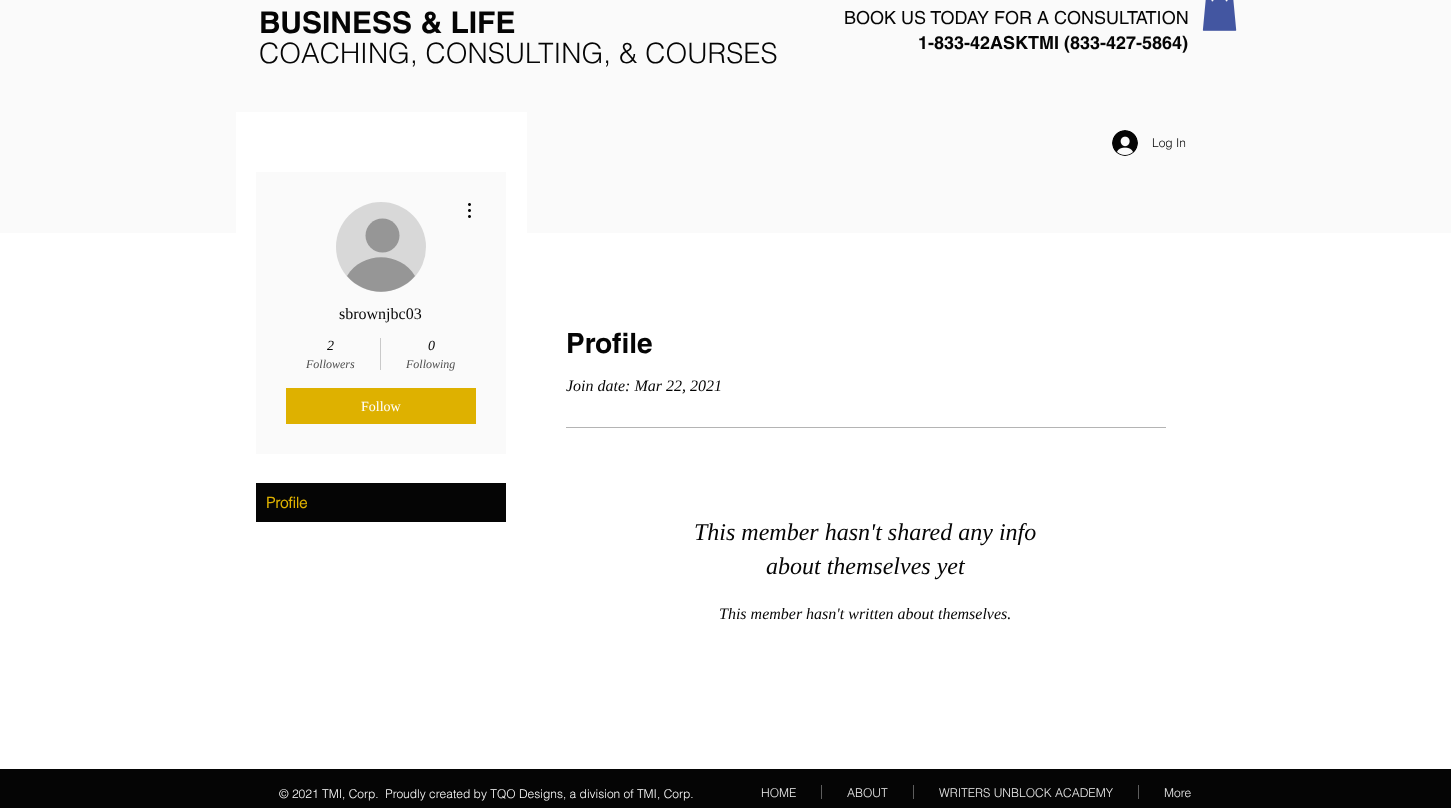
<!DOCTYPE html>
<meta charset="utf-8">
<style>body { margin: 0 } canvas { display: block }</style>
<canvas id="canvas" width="1451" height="808"></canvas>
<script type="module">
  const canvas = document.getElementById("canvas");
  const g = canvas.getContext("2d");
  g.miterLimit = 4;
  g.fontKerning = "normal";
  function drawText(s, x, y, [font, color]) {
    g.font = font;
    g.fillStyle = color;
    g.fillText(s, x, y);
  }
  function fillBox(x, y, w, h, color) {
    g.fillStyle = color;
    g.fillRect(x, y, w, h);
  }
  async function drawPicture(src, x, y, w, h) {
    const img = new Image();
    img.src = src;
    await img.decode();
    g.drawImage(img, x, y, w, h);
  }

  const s1 = ["bold 30px helvetica", "#050505"];
  const s2 = ["300 28px helvetica", "#050505"];
  const s3 = ["18px helvetica", "#050505"];
  const s4 = ["bold 18px helvetica", "#050505"];
  const s5 = ["300 12px helvetica", "#050505"];
  const s6 = ["16px Liberation Serif", "#050505"];
  const s7 = ["italic 14px Liberation Serif", "#050505"];
  const s8 = ["italic 12px Liberation Serif", "#4F4F4F"];
  const s9 = ["14px Liberation Serif", "#FFFFFF"];
  const s10 = ["bold 15px 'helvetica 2'", "#DEB100"];
  const s11 = ["bold 28px helvetica", "#050505"];
  const s12 = ["italic 16px Liberation Serif", "#050505"];
  const s13 = ["italic 24px Liberation Serif", "#050505"];
  const s14 = ["300 12px helvetica", "#FFFFFF"];
  const s15 = ["300 12px helvetica", "#ECECEC"];

  fillBox(0, 0, 1451, 808, "#FFFFFF");
  fillBox(0, 0, 1451, 233, "#FAFAFA");
  drawText("BUSINESS & LIFE", 259, 33, s1);
  drawText("COACHING, CONSULTING, & COURSES", 259, 63, s2);
  drawText("BOOK US TODAY FOR A CONSULTATION", 844, 24, s3);
  drawText("1-833-42ASKTMI (833-427-5864)", 918, 49, s4);
  await drawPicture("pic1.png", 1202, 0, 35, 31);
  await drawPicture("pic2.png", 1112, 130, 26, 26);
  drawText("Log In", 1152, 147, s5);
  fillBox(236, 112, 291, 121, "#FFFFFF");
  fillBox(256, 172, 250, 282, "#FAFAFA");
  g.fillStyle = "#D8D8D8";
  g.beginPath();
  g.arc(381, 247, 45, 0, Math.PI * 2);
  g.fill();
  g.fillStyle = "#969696";
  g.beginPath();
  g.arc(382.5, 235.5, 17, 0, Math.PI * 2);
  g.fill();
  g.beginPath();
  g.moveTo(415, 276);
  g.bezierCurveTo(397, 297, 365, 297, 347, 276);
  g.bezierCurveTo(362, 251, 400, 251, 415, 276);
  g.closePath();
  g.fill();
  await drawPicture("pic3.png", 468, 203, 3, 15);
  drawText("sbrownjbc03", 339, 319, s6);
  drawText("2", 327, 350, s7);
  drawText("Followers", 306, 368, s8);
  fillBox(380, 338, 1, 32, "#C9C9C9");
  drawText("0", 428, 350, s7);
  drawText("Following", 406, 368, s8);
  fillBox(286, 388, 190, 36, "#DEB100");
  drawText("Follow", 361, 411, s9);
  fillBox(256, 483, 250, 39, "#050505");
  drawText("Profile", 266, 508, s10);
  drawText("Profile", 566, 353, s11);
  drawText("Join date: Mar 22, 2021", 566, 391, s12);
  fillBox(566, 427, 600, 1, "#B4B4B4");
  drawText("This member hasn't shared any info", 694, 540, s13);
  drawText("about themselves yet", 766, 574, s13);
  drawText("This member hasn't written about themselves.", 719, 619, s12);
  fillBox(0, 769, 1451, 39, "#050505");
  drawText("© 2021 TMI, Corp.  Proudly created by TQO Designs, a division of TMI, Corp.", 279, 798, s14);
  drawText("HOME", 761, 797, s15);
  fillBox(821, 785, 1, 14, "#5D5D5D");
  drawText("ABOUT", 847, 797, s15);
  fillBox(913, 785, 1, 14, "#5D5D5D");
  drawText("WRITERS UNBLOCK ACADEMY", 939, 797, s15);
  fillBox(1138, 785, 1, 14, "#5D5D5D");
  drawText("More", 1164, 797, s15);
</script>
